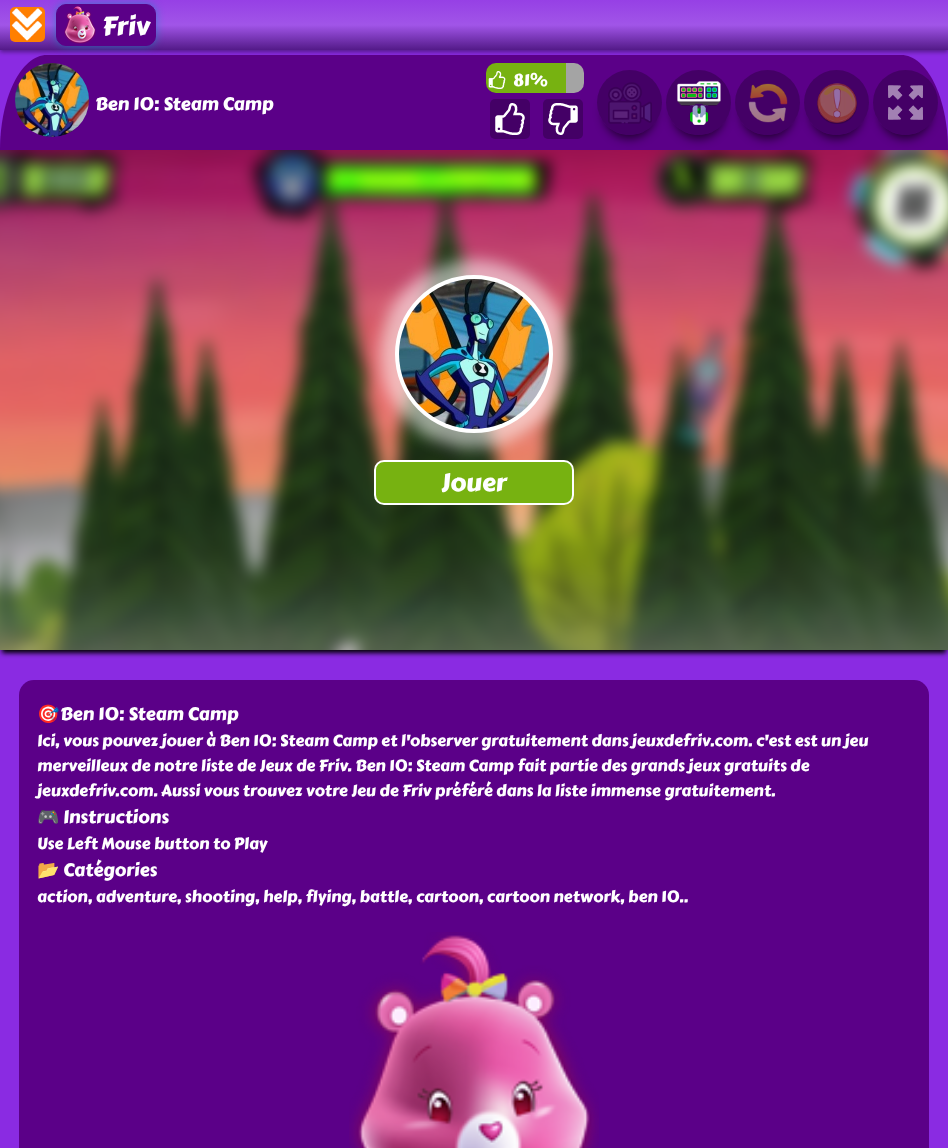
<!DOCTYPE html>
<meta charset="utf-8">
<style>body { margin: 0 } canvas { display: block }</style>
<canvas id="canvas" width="948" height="1148"></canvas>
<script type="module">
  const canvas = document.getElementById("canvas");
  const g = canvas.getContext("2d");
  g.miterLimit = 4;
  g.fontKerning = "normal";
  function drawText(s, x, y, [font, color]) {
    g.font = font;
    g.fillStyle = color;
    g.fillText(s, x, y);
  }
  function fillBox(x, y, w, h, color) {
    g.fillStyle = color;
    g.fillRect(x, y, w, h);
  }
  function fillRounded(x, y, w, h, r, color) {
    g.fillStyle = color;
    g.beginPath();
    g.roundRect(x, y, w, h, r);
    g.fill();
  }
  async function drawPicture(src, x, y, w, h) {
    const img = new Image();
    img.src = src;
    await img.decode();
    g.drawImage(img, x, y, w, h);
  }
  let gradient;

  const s1 = ["26px Carter One", "#FFFFFF"];
  const s2 = ["17px Carter One", "#FFFFFF"];
  const s3 = ["18px Carter One", "#FFFFFF"];
  const s4 = ["25px Carter One", "#FFFFFF"];
  const s5 = ["18px Noto Color Emoji", "#FFFFFF"];
  const s6 = ["16px Carter One", "#FFFFFF"];

  fillBox(0, 0, 948, 1148, "#8A2BE2");
  g.fillStyle = "rgba(0, 0, 0, 0.4)";
  g.filter = "blur(2px)";
  g.beginPath();
  g.rect(0, 2, 948, 50);
  g.fill();
  g.filter = "none";
  gradient = g.createLinearGradient(474, 0, 474, 50);
  gradient.addColorStop(0, "#9640E5");
  gradient.addColorStop(0.5, "#A155E8");
  gradient.addColorStop(1, "#531A88");
  g.fillStyle = gradient;
  g.fillRect(0, 0, 948, 50);
  await drawPicture("pic1.png", 10, 7, 35, 35);
  g.fillStyle = "rgba(0, 146, 191, 0.6)";
  g.filter = "blur(4px)";
  g.beginPath();
  g.roundRect(56, 4, 100, 42, 10);
  g.fill();
  g.filter = "none";
  g.fillStyle = "#5B0088";
  g.beginPath();
  g.roundRect(56.5, 4.5, 99, 41, 9.5);
  g.fill();
  g.strokeStyle = "#5B0088";
  g.stroke();
  await drawPicture("pic2.png", 64, 6, 32, 38);
  drawText("Friv", 102, 35, s1);
  g.fillStyle = "#5B0088";
  g.beginPath();
  g.moveTo(47, 55);
  g.lineTo(901, 55);
  g.bezierCurveTo(927, 55, 948, 98, 948, 150);
  g.lineTo(0, 150);
  g.bezierCurveTo(0, 98, 21, 55, 47, 55);
  g.closePath();
  g.fill();
  await drawPicture("pic3.png", 15, 63, 74, 74);
  g.fillStyle = "#77B211";
  g.beginPath();
  g.roundRect(486, 63, 80, 30, [10, 0, 0, 10]);
  g.fill();
  await drawPicture("pic4.png", 488, 71, 18, 18);
  drawText("81%", 513, 86, s2);
  g.fillStyle = "#A4A4A4";
  g.beginPath();
  g.roundRect(566, 63, 18, 30, [0, 10, 10, 0]);
  g.fill();
  fillRounded(490, 99, 40, 40, 5, "#440066");
  await drawPicture("pic5.png", 495, 103, 30, 32);
  fillRounded(543, 99, 40, 40, 5, "#440066");
  await drawPicture("pic6.png", 548, 103, 30, 32);
  g.save();
  g.beginPath();
  g.moveTo(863, 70);
  g.lineTo(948, 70);
  g.lineTo(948, 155);
  g.lineTo(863, 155);
  g.closePath();
  g.moveTo(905.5, 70);
  g.bezierCurveTo(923.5, 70, 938, 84.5, 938, 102.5);
  g.bezierCurveTo(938, 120.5, 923.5, 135, 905.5, 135);
  g.bezierCurveTo(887.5, 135, 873, 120.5, 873, 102.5);
  g.bezierCurveTo(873, 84.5, 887.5, 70, 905.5, 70);
  g.closePath();
  g.clip("evenodd");
  g.fillStyle = "rgba(0, 0, 0, 0.6)";
  g.filter = "blur(5px)";
  g.beginPath();
  g.roundRect(879, 86, 53, 53, 26.5);
  g.fill();
  g.filter = "none";
  g.restore();
  g.fillStyle = "rgba(0, 0, 0, 0.25)";
  g.beginPath();
  g.arc(905.5, 102.5, 32.5, 0, Math.PI * 2);
  g.fill();
  g.save();
  g.beginPath();
  g.moveTo(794, 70);
  g.lineTo(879, 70);
  g.lineTo(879, 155);
  g.lineTo(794, 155);
  g.closePath();
  g.moveTo(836.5, 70);
  g.bezierCurveTo(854.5, 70, 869, 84.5, 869, 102.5);
  g.bezierCurveTo(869, 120.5, 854.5, 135, 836.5, 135);
  g.bezierCurveTo(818.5, 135, 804, 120.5, 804, 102.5);
  g.bezierCurveTo(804, 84.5, 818.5, 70, 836.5, 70);
  g.closePath();
  g.clip("evenodd");
  g.fillStyle = "rgba(0, 0, 0, 0.6)";
  g.filter = "blur(5px)";
  g.beginPath();
  g.roundRect(810, 86, 53, 53, 26.5);
  g.fill();
  g.filter = "none";
  g.restore();
  g.beginPath();
  g.arc(836.5, 102.5, 32.5, 0, Math.PI * 2);
  g.fill();
  g.save();
  g.beginPath();
  g.moveTo(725, 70);
  g.lineTo(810, 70);
  g.lineTo(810, 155);
  g.lineTo(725, 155);
  g.closePath();
  g.moveTo(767.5, 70);
  g.bezierCurveTo(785.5, 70, 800, 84.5, 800, 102.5);
  g.bezierCurveTo(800, 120.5, 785.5, 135, 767.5, 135);
  g.bezierCurveTo(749.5, 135, 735, 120.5, 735, 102.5);
  g.bezierCurveTo(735, 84.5, 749.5, 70, 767.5, 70);
  g.closePath();
  g.clip("evenodd");
  g.fillStyle = "rgba(0, 0, 0, 0.6)";
  g.filter = "blur(5px)";
  g.beginPath();
  g.roundRect(741, 86, 53, 53, 26.5);
  g.fill();
  g.filter = "none";
  g.restore();
  g.beginPath();
  g.arc(767.5, 102.5, 32.5, 0, Math.PI * 2);
  g.fill();
  g.save();
  g.beginPath();
  g.moveTo(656, 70);
  g.lineTo(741, 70);
  g.lineTo(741, 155);
  g.lineTo(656, 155);
  g.closePath();
  g.moveTo(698.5, 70);
  g.bezierCurveTo(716.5, 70, 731, 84.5, 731, 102.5);
  g.bezierCurveTo(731, 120.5, 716.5, 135, 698.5, 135);
  g.bezierCurveTo(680.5, 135, 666, 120.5, 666, 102.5);
  g.bezierCurveTo(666, 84.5, 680.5, 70, 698.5, 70);
  g.closePath();
  g.clip("evenodd");
  g.fillStyle = "rgba(0, 0, 0, 0.6)";
  g.filter = "blur(5px)";
  g.beginPath();
  g.roundRect(672, 86, 53, 53, 26.5);
  g.fill();
  g.filter = "none";
  g.restore();
  g.beginPath();
  g.arc(698.5, 102.5, 32.5, 0, Math.PI * 2);
  g.fill();
  g.save();
  g.beginPath();
  g.moveTo(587, 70);
  g.lineTo(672, 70);
  g.lineTo(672, 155);
  g.lineTo(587, 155);
  g.closePath();
  g.moveTo(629.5, 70);
  g.bezierCurveTo(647.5, 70, 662, 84.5, 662, 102.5);
  g.bezierCurveTo(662, 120.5, 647.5, 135, 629.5, 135);
  g.bezierCurveTo(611.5, 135, 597, 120.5, 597, 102.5);
  g.bezierCurveTo(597, 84.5, 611.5, 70, 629.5, 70);
  g.closePath();
  g.clip("evenodd");
  g.fillStyle = "rgba(0, 0, 0, 0.6)";
  g.filter = "blur(5px)";
  g.beginPath();
  g.roundRect(603, 86, 53, 53, 26.5);
  g.fill();
  g.filter = "none";
  g.restore();
  g.beginPath();
  g.arc(629.5, 102.5, 32.5, 0, Math.PI * 2);
  g.fill();
  await drawPicture("pic7.png", 608, 82, 44, 42);
  await drawPicture("pic8.png", 677, 81, 44, 44);
  await drawPicture("pic9.png", 748, 83, 40, 40);
  await drawPicture("pic10.png", 817, 83, 41, 41);
  await drawPicture("pic11.png", 888, 85, 35, 35);
  drawText("Ben 10: Steam Camp", 95, 110, s3);
  g.fillStyle = "#000000";
  g.filter = "blur(2.5px)";
  g.beginPath();
  g.rect(2, 157, 944, 496);
  g.fill();
  g.filter = "none";
  await drawPicture("pic12.png", 0, 150, 948, 500);
  g.fillStyle = "rgba(255, 255, 255, 0.55)";
  g.filter = "blur(7.5px)";
  g.beginPath();
  g.roundRect(380, 260, 188, 188, 94);
  g.fill();
  g.filter = "none";
  g.fillStyle = "#FFFFFF";
  g.beginPath();
  g.arc(474, 354, 77, 0, Math.PI * 2);
  g.fill();
  g.strokeStyle = "#FFFFFF";
  g.lineWidth = 4;
  g.stroke();
  await drawPicture("pic13.png", 399, 279, 150, 150);
  g.fillStyle = "#77B211";
  g.beginPath();
  g.roundRect(375, 461, 198, 43, 9);
  g.fill();
  g.lineWidth = 2;
  g.stroke();
  drawText("Jouer", 441, 491, s4);
  fillRounded(19, 680, 910, 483, 15, "#5B0088");
  drawText("🎯", 37, 720, s5);
  drawText("Ben 10: Steam Camp", 60, 720, s3);
  drawText("Ici, vous pouvez jouer à Ben 10: Steam Camp et l'observer gratuitement dans jeuxdefriv.com. c'est est un jeu", 37, 746, s6);
  drawText("merveilleux de notre liste de Jeux de Friv. Ben 10: Steam Camp fait partie des grands jeux gratuits de", 37, 771, s6);
  drawText("jeuxdefriv.com. Aussi vous trouvez votre Jeu de Friv préféré dans la liste immense gratuitement.", 37, 796, s6);
  drawText("🎮", 37, 823, s5);
  drawText("Instructions", 63, 823, s3);
  drawText("Use Left Mouse button to Play", 37, 849, s6);
  drawText("📂", 37, 876, s5);
  drawText("Catégories", 63, 876, s3);
  drawText("action, adventure, shooting, help, flying, battle, cartoon, cartoon network, ben 10..", 37, 902, s6);
  await drawPicture("pic14.png", 349, 932, 250, 216);
</script>
